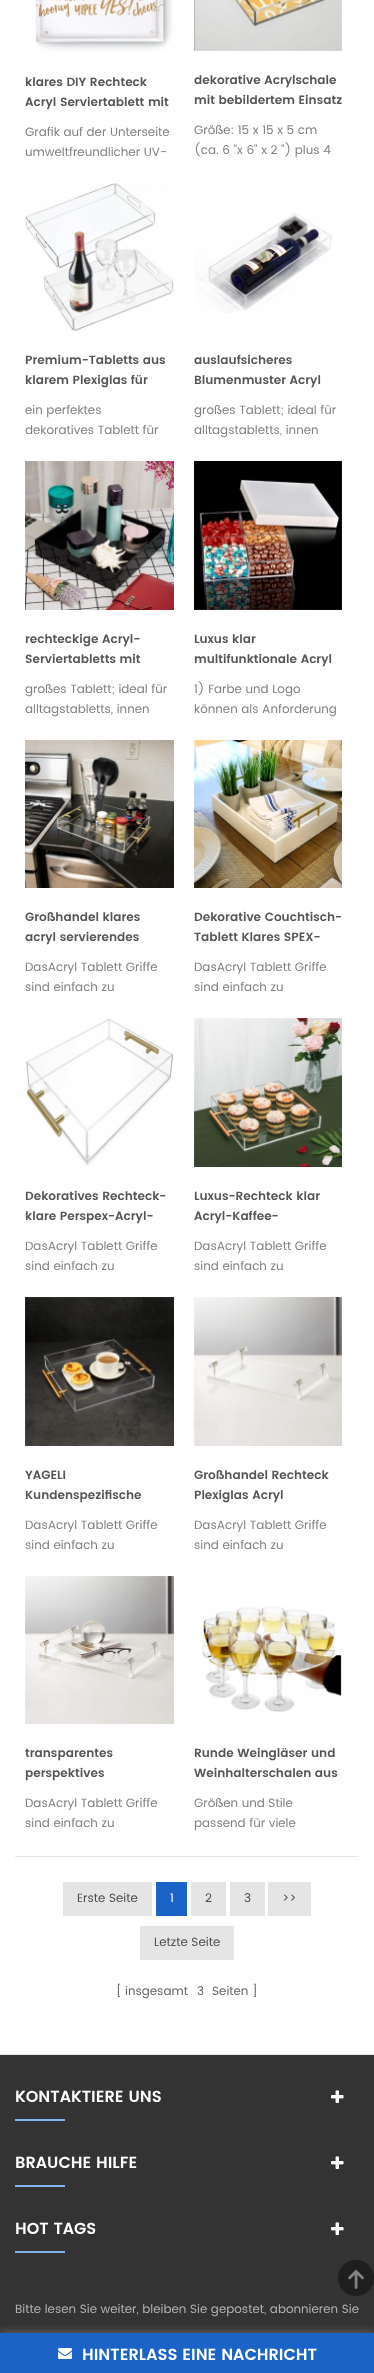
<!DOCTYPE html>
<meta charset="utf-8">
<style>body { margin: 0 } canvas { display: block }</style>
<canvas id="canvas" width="374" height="2373"></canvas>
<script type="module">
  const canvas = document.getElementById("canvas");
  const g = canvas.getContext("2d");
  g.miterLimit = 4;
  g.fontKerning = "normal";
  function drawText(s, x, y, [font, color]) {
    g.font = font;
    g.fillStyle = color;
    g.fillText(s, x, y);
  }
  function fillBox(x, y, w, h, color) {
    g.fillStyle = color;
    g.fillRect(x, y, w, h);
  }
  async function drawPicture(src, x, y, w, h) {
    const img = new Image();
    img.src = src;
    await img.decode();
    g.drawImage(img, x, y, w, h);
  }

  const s1 = ["600 12px Poppins", "#555555"];
  const s2 = ["12px Poppins", "#808080"];
  const s3 = ["12px Poppins", "#4D4D4D"];
  const s4 = ["12px Poppins", "#FFFFFF"];
  const s5 = ["12px Poppins", "#666666"];
  const s6 = ["600 16px Poppins", "#FFFFFF"];
  const s7 = ["12px Poppins", "#B2B2B2"];

  fillBox(0, 0, 374, 2373, "#FFFFFF");
  fillBox(0, 2054, 374, 1, "#E5E5E5");
  await drawPicture("pic1.png", 35, 0, 138, 52);
  drawText("klares DIY Rechteck", 25, 86, s1);
  drawText("Acryl Serviertablett mit", 25, 106, s1);
  drawText("Grafik auf der Unterseite", 25, 136, s2);
  drawText("umweltfreundlicher UV-", 25, 156, s2);
  await drawPicture("pic2.png", 194, 0, 148, 51);
  drawText("dekorative Acrylschale", 194, 84, s1);
  drawText("mit bebildertem Einsatz", 194, 104, s1);
  drawText("Größe: 15 x 15 x 5 cm", 194, 134, s2);
  drawText("(ca. 6 \"x 6\" x 2 \") plus 4", 194, 154, s2);
  await drawPicture("pic3.png", 25, 183, 149, 148);
  drawText("Premium-Tabletts aus", 25, 364, s1);
  drawText("klarem Plexiglas für", 25, 384, s1);
  drawText("ein perfektes", 25, 414, s2);
  drawText("dekoratives Tablett für", 25, 434, s2);
  await drawPicture("pic4.png", 195, 213, 138, 100);
  drawText("auslaufsicheres", 194, 364, s1);
  drawText("Blumenmuster Acryl", 194, 384, s1);
  drawText("großes Tablett; ideal für", 194, 414, s2);
  drawText("alltagstabletts, innen", 194, 434, s2);
  await drawPicture("pic5.png", 25, 461, 149, 149);
  drawText("rechteckige Acryl-", 25, 643, s1);
  drawText("Serviertabletts mit", 25, 663, s1);
  drawText("großes Tablett; ideal für", 25, 693, s2);
  drawText("alltagstabletts, innen", 25, 713, s2);
  await drawPicture("pic6.png", 194, 461, 148, 149);
  drawText("Luxus klar", 194, 643, s1);
  drawText("multifunktionale Acryl", 194, 663, s1);
  drawText("1) Farbe und Logo", 194, 693, s2);
  drawText("können als Anforderung", 194, 713, s2);
  await drawPicture("pic7.png", 25, 740, 149, 148);
  drawText("Großhandel klares", 25, 921, s1);
  drawText("acryl servierendes", 25, 941, s1);
  drawText("DasAcryl Tablett Griffe", 25, 971, s2);
  drawText("sind einfach zu", 25, 991, s2);
  await drawPicture("pic8.png", 194, 740, 148, 148);
  drawText("Dekorative Couchtisch-", 194, 921, s1);
  drawText("Tablett Klares SPEX-", 194, 941, s1);
  drawText("DasAcryl Tablett Griffe", 194, 971, s2);
  drawText("sind einfach zu", 194, 991, s2);
  await drawPicture("pic9.png", 26, 1018, 148, 149);
  drawText("Dekoratives Rechteck-", 25, 1200, s1);
  drawText("klare Perspex-Acryl-", 25, 1220, s1);
  drawText("DasAcryl Tablett Griffe", 25, 1250, s2);
  drawText("sind einfach zu", 25, 1270, s2);
  await drawPicture("pic10.png", 194, 1018, 148, 149);
  drawText("Luxus-Rechteck klar", 194, 1200, s1);
  drawText("Acryl-Kaffee-", 194, 1220, s1);
  drawText("DasAcryl Tablett Griffe", 194, 1250, s2);
  drawText("sind einfach zu", 194, 1270, s2);
  await drawPicture("pic11.png", 25, 1297, 149, 149);
  drawText("YAGELI", 25, 1479, s1);
  drawText("Kundenspezifische", 25, 1499, s1);
  drawText("DasAcryl Tablett Griffe", 25, 1529, s2);
  drawText("sind einfach zu", 25, 1549, s2);
  await drawPicture("pic12.png", 194, 1297, 148, 149);
  drawText("Großhandel Rechteck", 194, 1479, s1);
  drawText("Plexiglas Acryl", 194, 1499, s1);
  drawText("DasAcryl Tablett Griffe", 194, 1529, s2);
  drawText("sind einfach zu", 194, 1549, s2);
  await drawPicture("pic13.png", 25, 1576, 149, 148);
  drawText("transparentes", 25, 1757, s1);
  drawText("perspektives", 25, 1777, s1);
  drawText("DasAcryl Tablett Griffe", 25, 1807, s2);
  drawText("sind einfach zu", 25, 1827, s2);
  await drawPicture("pic14.png", 202, 1606, 140, 107);
  drawText("Runde Weingläser und", 194, 1757, s1);
  drawText("Weinhalterschalen aus", 194, 1777, s1);
  drawText("Größen und Stile", 194, 1807, s2);
  drawText("passend für viele", 194, 1827, s2);
  fillBox(15, 1856, 344, 1, "#E5E5E5");
  fillBox(63, 1882, 89, 34, "#E5E5E5");
  drawText("Erste Seite", 77, 1902, s3);
  fillBox(156, 1882, 31, 34, "#1B63C7");
  drawText("1", 170, 1902, s4);
  fillBox(191, 1882, 35, 34, "#E5E5E5");
  drawText("2", 205, 1902, s3);
  fillBox(230, 1882, 35, 34, "#E5E5E5");
  drawText("3", 244, 1902, s3);
  fillBox(268, 1882, 43, 34, "#E5E5E5");
  drawText(">>", 282, 1902, s3);
  fillBox(140, 1926, 94, 34, "#E5E5E5");
  drawText("Letzte Seite", 154, 1946, s3);
  drawText("[", 116, 1995, s5);
  drawText("insgesamt", 125, 1995, s5);
  drawText("3", 197, 1995, s5);
  drawText("Seiten", 212, 1995, s5);
  drawText("]", 252, 1995, s5);
  fillBox(0, 2055, 374, 278, "#333333");
  drawText("KONTAKTIERE UNS", 15, 2102, s6);
  await drawPicture("pic15.png", 331, 2090, 13, 13);
  fillBox(15, 2119, 50, 2, "#86B2EF");
  drawText("BRAUCHE HILFE", 15, 2168, s6);
  await drawPicture("pic15.png", 331, 2156, 13, 13);
  fillBox(15, 2185, 50, 2, "#86B2EF");
  drawText("HOT TAGS", 15, 2234, s6);
  await drawPicture("pic15.png", 331, 2222, 13, 13);
  fillBox(15, 2251, 50, 2, "#86B2EF");
  drawText("Bitte lesen Sie weiter, bleiben Sie gepostet, abonnieren Sie", 15, 2313, s7);
  await drawPicture("pic16.png", 338, 2260, 36, 36);
  g.fillStyle = "rgba(255, 255, 255, 0.3)";
  g.filter = "blur(5px)";
  g.beginPath();
  g.rect(0, 2333, 374, 40);
  g.fill();
  g.filter = "none";
  fillBox(0, 2333, 374, 40, "#1B63C7");
  await drawPicture("pic17.png", 58, 2348, 14, 11);
  drawText("HINTERLASS EINE NACHRICHT", 82, 2360, s6);
</script>
